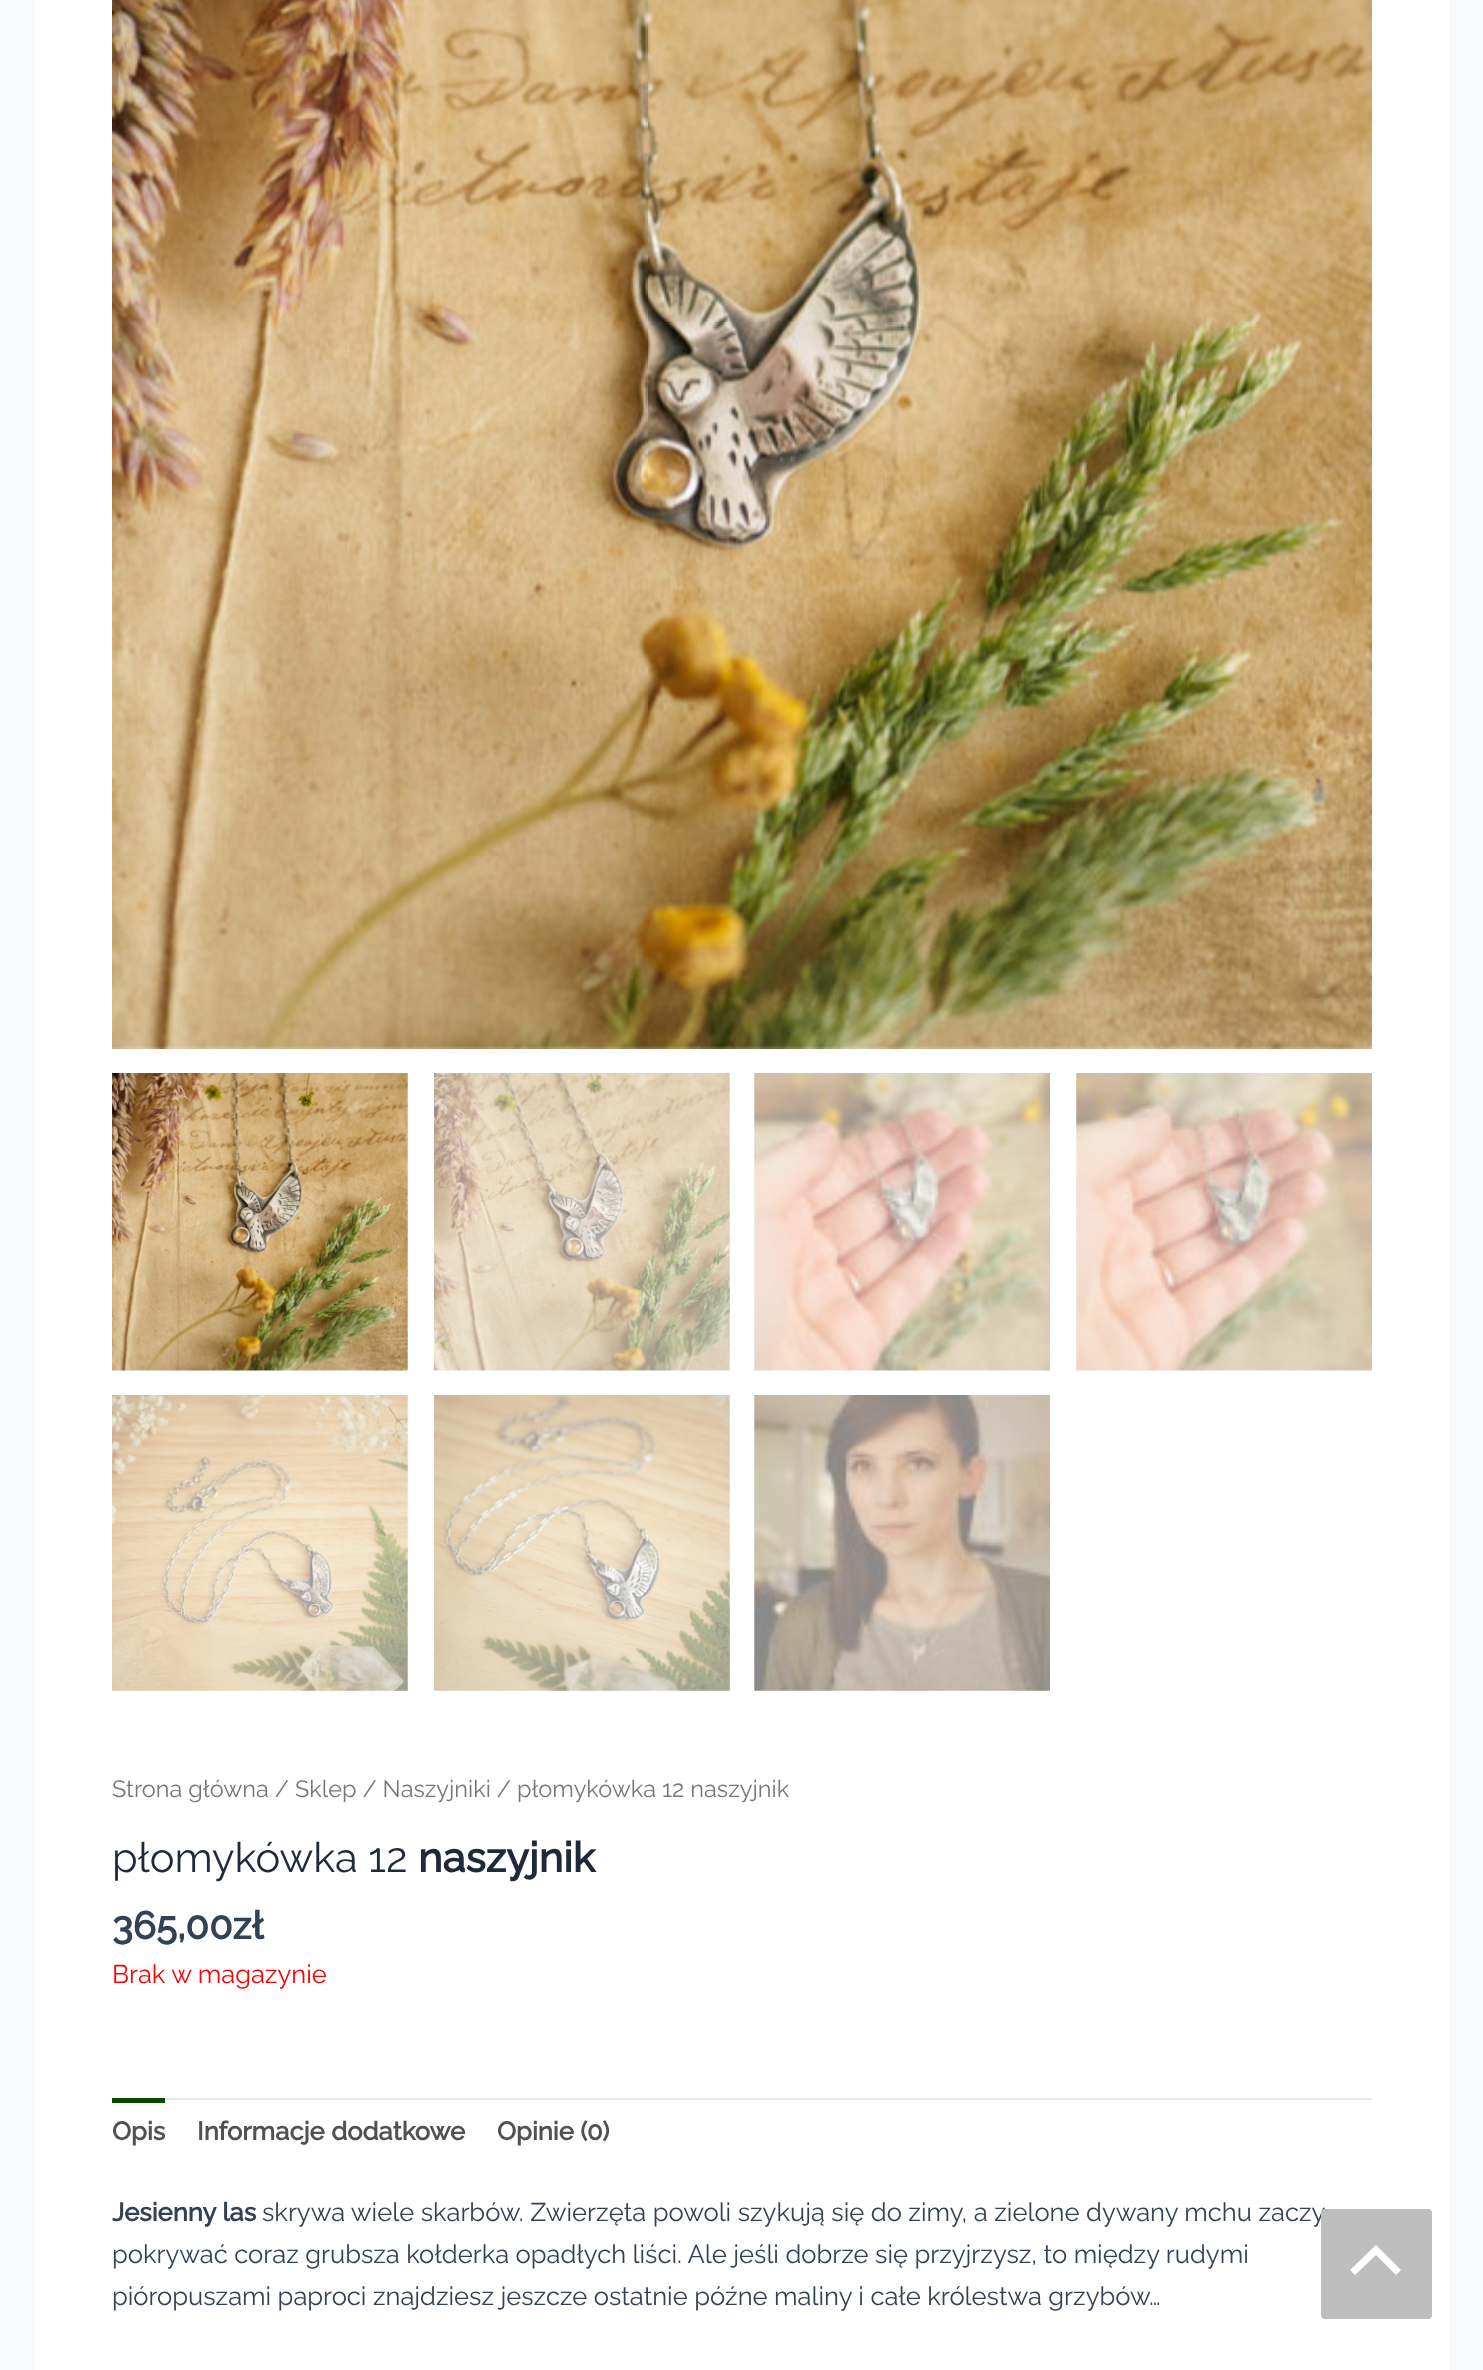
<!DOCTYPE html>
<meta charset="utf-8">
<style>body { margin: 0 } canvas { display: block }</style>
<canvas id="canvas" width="1483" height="2370"></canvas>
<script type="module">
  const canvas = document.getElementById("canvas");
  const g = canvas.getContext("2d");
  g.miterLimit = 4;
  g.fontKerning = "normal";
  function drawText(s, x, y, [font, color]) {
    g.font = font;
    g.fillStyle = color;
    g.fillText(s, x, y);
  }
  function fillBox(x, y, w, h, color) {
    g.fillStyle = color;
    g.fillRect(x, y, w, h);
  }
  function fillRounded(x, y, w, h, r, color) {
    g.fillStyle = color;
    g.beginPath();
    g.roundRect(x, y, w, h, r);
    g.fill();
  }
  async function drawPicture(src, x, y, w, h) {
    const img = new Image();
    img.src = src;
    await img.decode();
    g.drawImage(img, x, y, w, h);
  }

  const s1 = ["23.5px Raleway", "#777777"];
  const s2 = ["41.5px Raleway", "#1E293B"];
  const s3 = ["bold 41.5px Raleway", "#1E293B"];
  const s4 = ["bold 38.5px Raleway", "#334155"];
  const s5 = ["25.55px Raleway", "#FF0000"];
  const s6 = ["bold 25.55px Raleway", "#515151"];
  const s7 = ["bold 25.55px Raleway", "#334155"];
  const s8 = ["25.55px Raleway", "#334155"];

  fillBox(0, 0, 1483, 2370, "#F9FAFB");
  fillBox(35, 0, 1414, 2370, "#FFFFFF");
  await drawPicture("pic1.png", 112, 0, 1260, 1049);
  await drawPicture("pic2.png", 112, 1073, 296, 298);
  await drawPicture("pic3.png", 434, 1073, 296, 298);
  await drawPicture("pic4.png", 754, 1073, 296, 298);
  await drawPicture("pic5.png", 1076, 1073, 296, 298);
  await drawPicture("pic6.png", 112, 1395, 296, 296);
  await drawPicture("pic7.png", 434, 1395, 296, 296);
  await drawPicture("pic8.png", 754, 1395, 296, 296);
  drawText("Strona główna / Sklep / Naszyjniki / płomykówka 12 naszyjnik", 112, 1797, s1);
  drawText("płomykówka 12", 112, 1872, s2);
  drawText("naszyjnik", 418, 1872, s3);
  drawText("365,00zł", 112, 1939, s4);
  drawText("Brak w magazynie", 112, 1983, s5);
  fillBox(165, 2098, 1207, 2, "#E2E8F0");
  fillBox(112, 2098, 53, 5, "#094701");
  drawText("Opis", 112, 2140, s6);
  drawText("Informacje dodatkowe", 197, 2140, s6);
  drawText("Opinie (0)", 497, 2140, s6);
  drawText("Jesienny las", 112, 2221, s7);
  drawText("skrywa wiele skarbów. Zwierzęta powoli szykują się do zimy, a zielone dywany mchu zaczy", 262, 2221, s8);
  drawText("pokrywać coraz grubsza kołderka opadłych liści. Ale jeśli dobrze się przyjrzysz, to między rudymi", 112, 2263, s8);
  drawText("pióropuszami paproci znajdziesz jeszcze ostatnie późne maliny i całe królestwa grzybów…", 112, 2305, s8);
  fillRounded(1321, 2209, 111, 110, 4, "#BEBEBE");
  g.fillStyle = "#FFFFFF";
  g.beginPath();
  g.moveTo(1401, 2270);
  g.lineTo(1376, 2245);
  g.lineTo(1350, 2270);
  g.lineTo(1355, 2275);
  g.lineTo(1376, 2255);
  g.lineTo(1396, 2275);
  g.closePath();
  g.fill();
</script>
